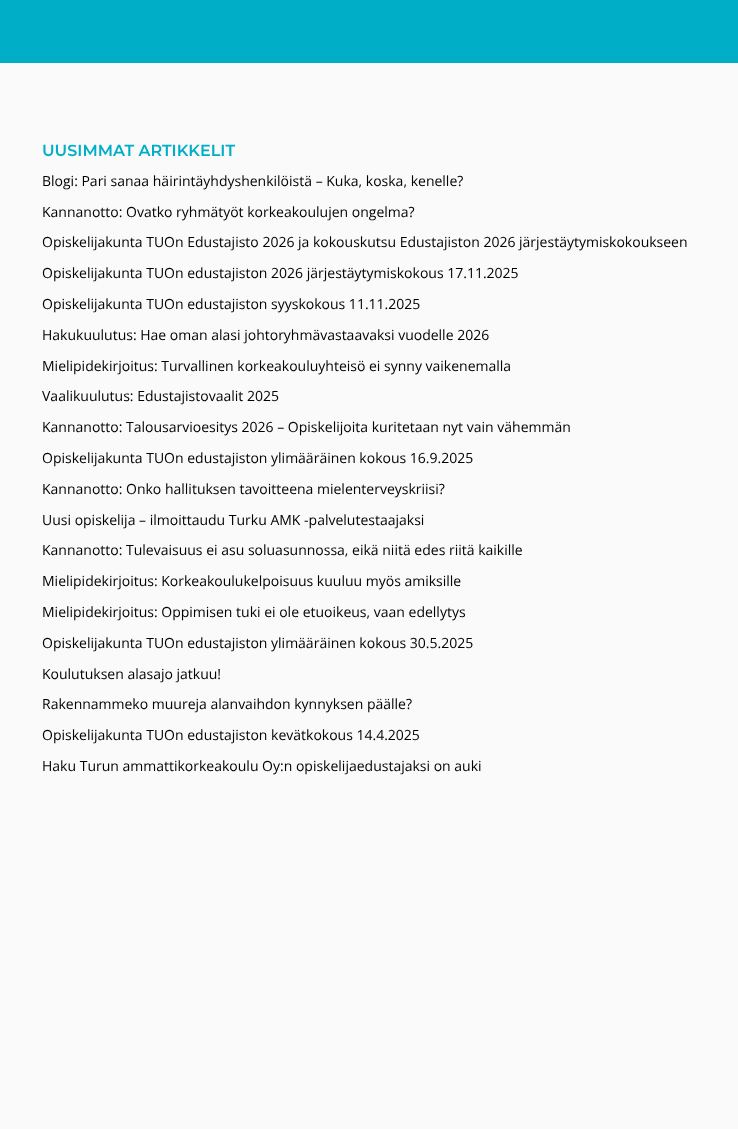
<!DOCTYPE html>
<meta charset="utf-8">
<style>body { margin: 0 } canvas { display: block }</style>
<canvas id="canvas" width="738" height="1129"></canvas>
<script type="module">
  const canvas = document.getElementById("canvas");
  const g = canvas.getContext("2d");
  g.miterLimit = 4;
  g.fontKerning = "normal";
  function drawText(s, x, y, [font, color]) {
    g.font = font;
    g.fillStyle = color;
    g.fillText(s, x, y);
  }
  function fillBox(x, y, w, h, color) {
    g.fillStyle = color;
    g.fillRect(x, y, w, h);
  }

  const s1 = ["100 16px Montserrat", "#00AEC7"];
  const s2 = ["14px Open Sans", "#000000"];

  fillBox(0, 0, 738, 1129, "#FAFAFA");
  fillBox(0, 0, 738, 63, "#00AEC7");
  drawText("UUSIMMAT ARTIKKELIT", 42, 156, s1);
  drawText("Blogi: Pari sanaa häirintäyhdyshenkilöistä – Kuka, koska, kenelle?", 42, 186, s2);
  drawText("Kannanotto: Ovatko ryhmätyöt korkeakoulujen ongelma?", 42, 217, s2);
  drawText("Opiskelijakunta TUOn Edustajisto 2026 ja kokouskutsu Edustajiston 2026 järjestäytymiskokoukseen", 42, 247, s2);
  drawText("Opiskelijakunta TUOn edustajiston 2026 järjestäytymiskokous 17.11.2025", 42, 278, s2);
  drawText("Opiskelijakunta TUOn edustajiston syyskokous 11.11.2025", 42, 309, s2);
  drawText("Hakukuulutus: Hae oman alasi johtoryhmävastaavaksi vuodelle 2026", 42, 340, s2);
  drawText("Mielipidekirjoitus: Turvallinen korkeakouluyhteisö ei synny vaikenemalla", 42, 371, s2);
  drawText("Vaalikuulutus: Edustajistovaalit 2025", 42, 401, s2);
  drawText("Kannanotto: Talousarvioesitys 2026 – Opiskelijoita kuritetaan nyt vain vähemmän", 42, 432, s2);
  drawText("Opiskelijakunta TUOn edustajiston ylimääräinen kokous 16.9.2025", 42, 463, s2);
  drawText("Kannanotto: Onko hallituksen tavoitteena mielenterveyskriisi?", 42, 494, s2);
  drawText("Uusi opiskelija – ilmoittaudu Turku AMK -palvelutestaajaksi", 42, 525, s2);
  drawText("Kannanotto: Tulevaisuus ei asu soluasunnossa, eikä niitä edes riitä kaikille", 42, 555, s2);
  drawText("Mielipidekirjoitus: Korkeakoulukelpoisuus kuuluu myös amiksille", 42, 586, s2);
  drawText("Mielipidekirjoitus: Oppimisen tuki ei ole etuoikeus, vaan edellytys", 42, 617, s2);
  drawText("Opiskelijakunta TUOn edustajiston ylimääräinen kokous 30.5.2025", 42, 648, s2);
  drawText("Koulutuksen alasajo jatkuu!", 42, 679, s2);
  drawText("Rakennammeko muureja alanvaihdon kynnyksen päälle?", 42, 709, s2);
  drawText("Opiskelijakunta TUOn edustajiston kevätkokous 14.4.2025", 42, 740, s2);
  drawText("Haku Turun ammattikorkeakoulu Oy:n opiskelijaedustajaksi on auki", 42, 771, s2);
</script>
